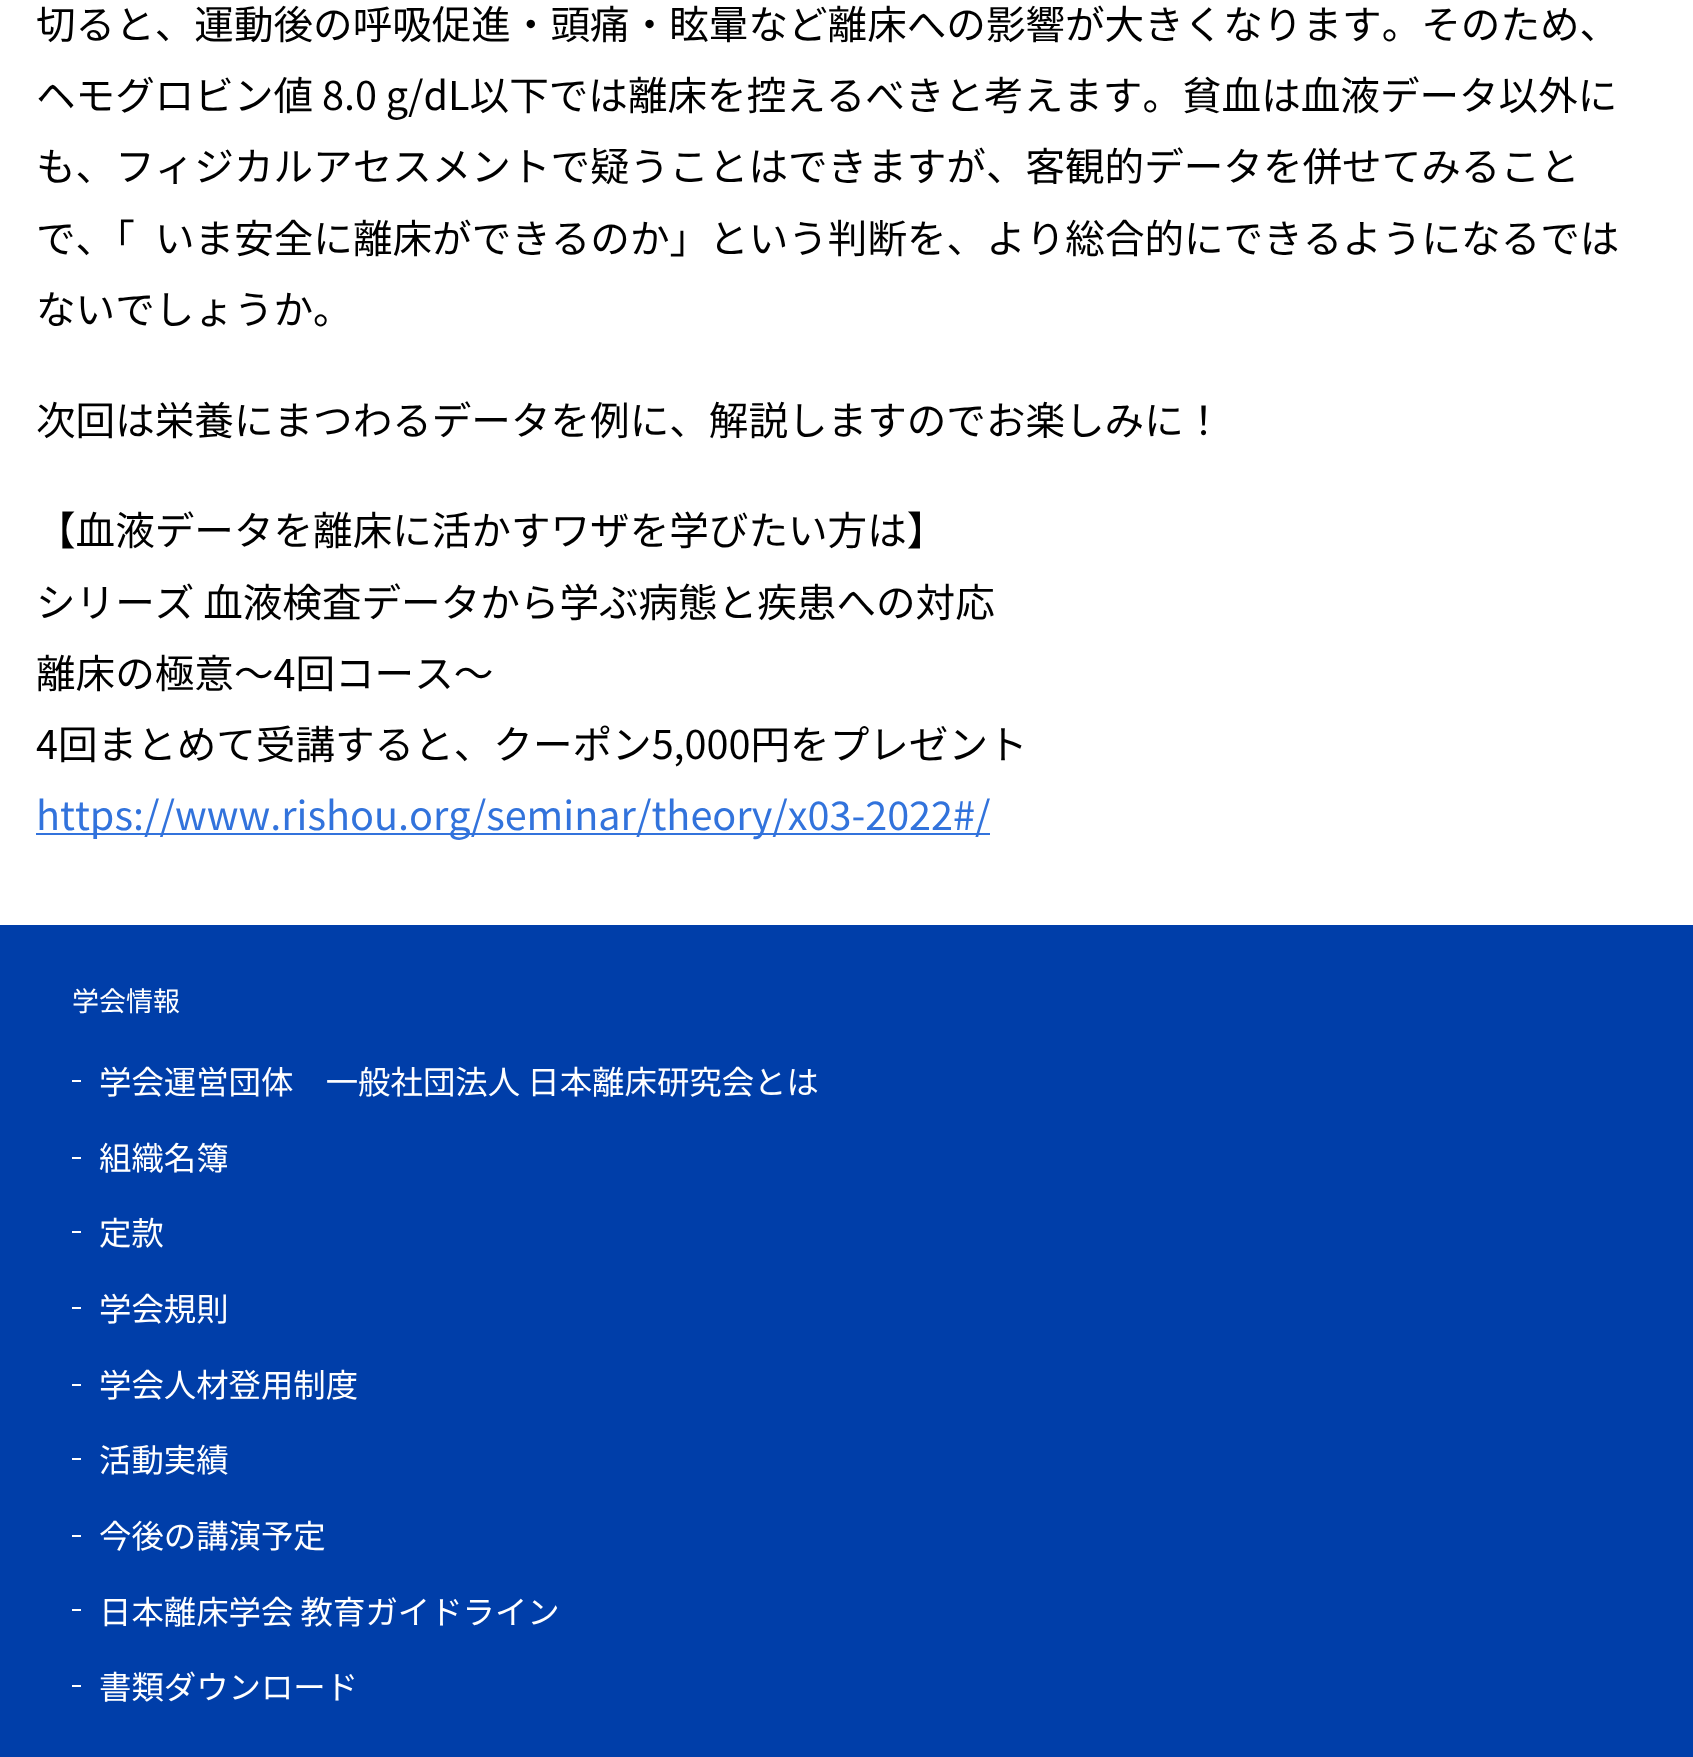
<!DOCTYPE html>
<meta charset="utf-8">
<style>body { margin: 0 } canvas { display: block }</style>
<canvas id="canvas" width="1693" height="1757"></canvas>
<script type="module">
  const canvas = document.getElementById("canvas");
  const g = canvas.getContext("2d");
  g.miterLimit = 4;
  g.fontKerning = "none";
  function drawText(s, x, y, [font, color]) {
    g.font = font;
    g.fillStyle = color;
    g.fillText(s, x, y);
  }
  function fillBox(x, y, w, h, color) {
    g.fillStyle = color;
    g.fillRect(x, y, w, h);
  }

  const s1 = ["39.6px Noto Sans JP", "#000000"];
  const s2 = ["39.6px Noto Sans JP", "#3273DC"];
  const s3 = ["27px Noto Sans JP", "#FFFFFF"];
  const s4 = ["32.4px Noto Sans JP", "#FFFFFF"];

  fillBox(0, 0, 1693, 1757, "#003EA9");
  fillBox(0, 0, 1693, 925, "#FFFFFF");
  drawText("切ると、運動後の呼吸促進・頭痛・眩暈など離床への影響が大きくなります。そのため、", 36, 39, s1);
  drawText("ヘモグロビン値 8.0 g/dL以下では離床を控えるべきと考えます。貧血は血液データ以外に", 36, 110, s1);
  drawText("も、フィジカルアセスメントで疑うことはできますが、客観的データを併せてみること", 36, 181, s1);
  drawText("で、「", 36, 253, s1);
  drawText("いま安全に離床ができるのか」という判断を、より総合的にできるようになるでは", 155, 253, s1);
  drawText("ないでしょうか。", 36, 324, s1);
  drawText("次回は栄養にまつわるデータを例に、解説しますのでお楽しみに！", 36, 435, s1);
  drawText("【血液データを離床に活かすワザを学びたい方は】", 36, 545, s1);
  drawText("シリーズ 血液検査データから学ぶ病態と疾患への対応", 36, 617, s1);
  drawText("離床の極意～4回コース～", 36, 688, s1);
  drawText("4回まとめて受講すると、クーポン5,000円をプレゼント", 36, 759, s1);
  fillBox(36, 833, 954, 2, "#3273DC");
  drawText("https://www.rishou.org/seminar/theory/x03-2022#/", 36, 830, s2);
  drawText("学会情報", 72, 1011, s3);
  fillBox(72, 1080, 9, 2, "#FFFFFF");
  drawText("学会運営団体　一般社団法人 日本離床研究会とは", 99, 1094, s4);
  fillBox(72, 1157, 9, 2, "#FFFFFF");
  drawText("組織名簿", 99, 1170, s4);
  fillBox(72, 1231, 9, 2, "#FFFFFF");
  drawText("定款", 99, 1245, s4);
  fillBox(72, 1307, 9, 2, "#FFFFFF");
  drawText("学会規則", 99, 1321, s4);
  fillBox(72, 1384, 9, 2, "#FFFFFF");
  drawText("学会人材登用制度", 99, 1397, s4);
  fillBox(72, 1458, 9, 2, "#FFFFFF");
  drawText("活動実績", 99, 1472, s4);
  fillBox(72, 1535, 9, 2, "#FFFFFF");
  drawText("今後の講演予定", 99, 1548, s4);
  fillBox(72, 1609, 9, 2, "#FFFFFF");
  drawText("日本離床学会 教育ガイドライン", 99, 1624, s4);
  fillBox(72, 1685, 9, 2, "#FFFFFF");
  drawText("書類ダウンロード", 99, 1699, s4);
</script>
